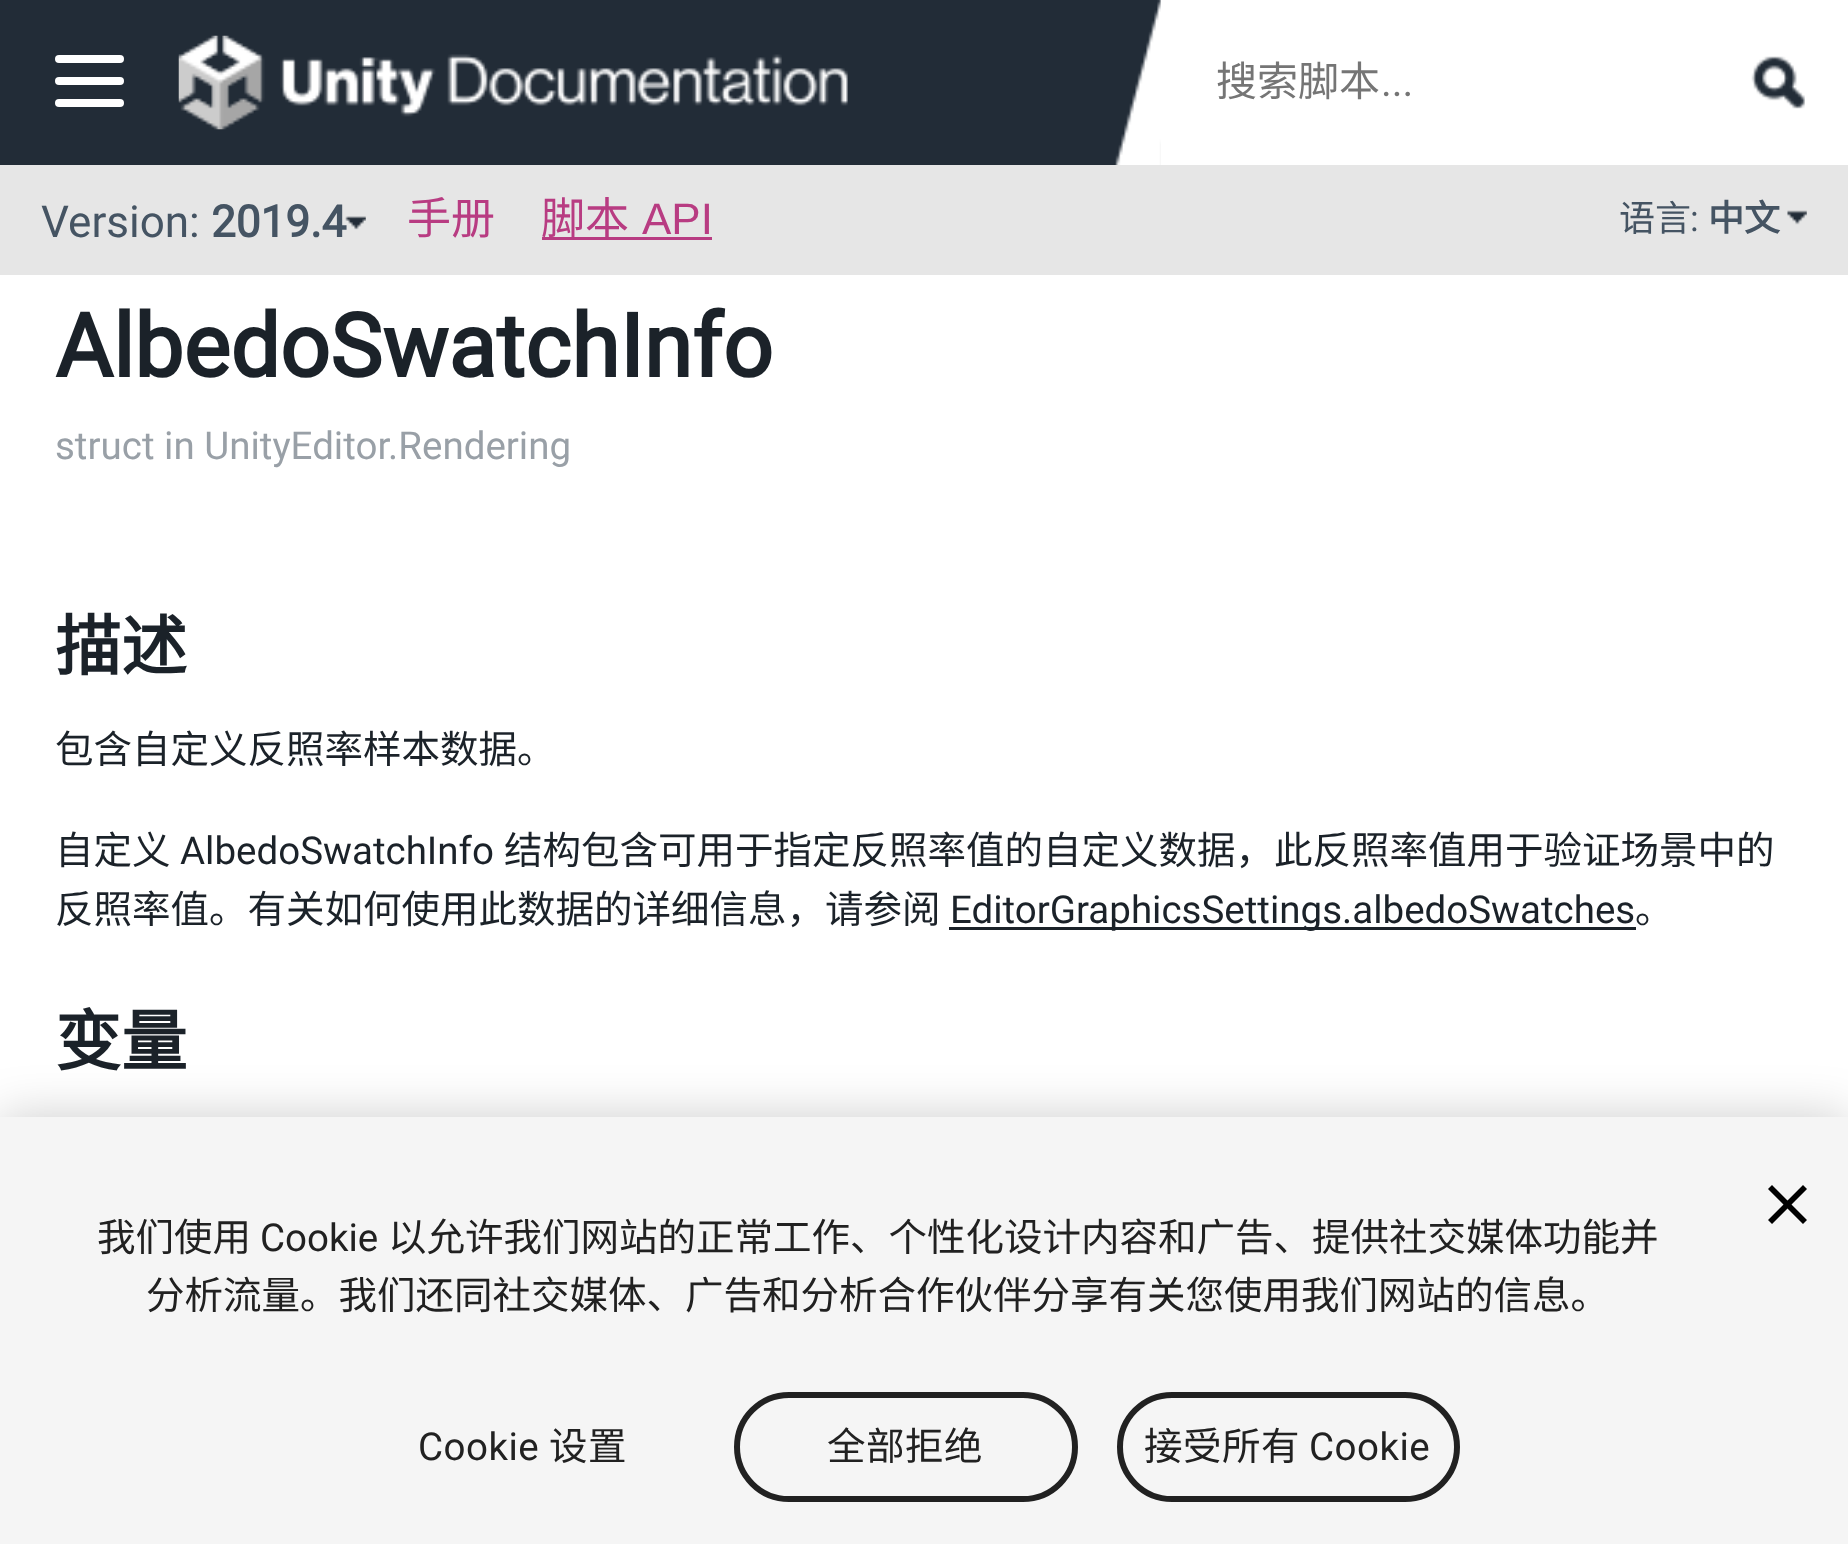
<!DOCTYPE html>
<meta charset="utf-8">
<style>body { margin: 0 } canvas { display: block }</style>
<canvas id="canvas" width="1848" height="1544"></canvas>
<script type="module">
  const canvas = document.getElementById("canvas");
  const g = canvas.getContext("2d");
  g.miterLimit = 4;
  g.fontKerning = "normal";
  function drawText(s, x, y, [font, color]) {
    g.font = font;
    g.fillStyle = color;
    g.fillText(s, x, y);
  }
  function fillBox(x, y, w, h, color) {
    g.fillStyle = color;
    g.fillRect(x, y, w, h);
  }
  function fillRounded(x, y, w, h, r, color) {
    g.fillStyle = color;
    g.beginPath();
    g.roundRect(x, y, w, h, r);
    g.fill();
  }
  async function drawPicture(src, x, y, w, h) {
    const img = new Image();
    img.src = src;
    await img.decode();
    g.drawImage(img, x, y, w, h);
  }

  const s1 = ["41px Noto Sans CJK SC", "#757575"];
  const s2 = ["41px Roboto", "#757575"];
  const s3 = ["44px Roboto", "#455463"];
  const s4 = ["bold 44px Roboto", "#455463"];
  const s5 = ["44px Noto Sans CJK SC", "#B83C82"];
  const s6 = ["44px Liberation Sans", "#B83C82"];
  const s7 = ["36px Noto Sans CJK SC", "#455463"];
  const s8 = ["36px Roboto", "#455463"];
  const s9 = ["bold 36px Noto Sans CJK SC", "#455463"];
  const s10 = ["bold 88px Roboto", "#1B2229"];
  const s11 = ["38.5px Roboto", "#99A0A7"];
  const s12 = ["bold 66px Noto Sans CJK SC", "#1B2229"];
  const s13 = ["38.5px Noto Sans CJK SC", "#1B2229"];
  const s14 = ["38.5px Roboto", "#1B2229"];
  const s15 = ["38.5px Noto Sans CJK SC", "#212121"];
  const s16 = ["38.5px Roboto", "#212121"];

  fillBox(0, 0, 1848, 1544, "#FFFFFF");
  fillBox(0, 0, 1161, 165, "#222C37");
  fillRounded(55, 55, 69, 8, 4, "#FFFFFF");
  fillRounded(55, 77, 69, 8, 4, "#FFFFFF");
  fillRounded(55, 99, 69, 8, 4, "#FFFFFF");
  await drawPicture("pic1.png", 178, 35, 670, 95);
  await drawPicture("pic2.png", 1115, 0, 46, 165);
  drawText("搜索脚本", 1216, 96, s1);
  drawText("...", 1381, 96, s2);
  await drawPicture("pic3.png", 1751, 56, 54, 53);
  fillBox(0, 165, 1848, 110, "#E6E6E6");
  drawText("Version:", 41, 237, s3);
  drawText("2019.4", 211, 237, s4);
  await drawPicture("pic4.png", 345, 216, 21, 14);
  drawText("手册", 407, 234, s5);
  fillBox(542, 237, 170, 3, "#B83C82");
  drawText("脚本", 541, 234, s5);
  drawText("API", 642, 234, s6);
  drawText("语言", 1619, 231, s7);
  drawText(":", 1690, 231, s8);
  drawText("中文", 1708, 231, s9);
  await drawPicture("pic5.png", 1787, 210, 20, 15);
  drawText("AlbedoSwatchInfo", 55, 377, s10);
  drawText("struct in UnityEditor.Rendering", 55, 459, s11);
  drawText("描述", 55, 670, s12);
  drawText("包含自定义反照率样本数据。", 55, 763, s13);
  drawText("自定义", 55, 864, s13);
  drawText("AlbedoSwatchInfo", 180, 864, s14);
  drawText("结构包含可用于指定反照率值的自定义数据，此反照率值用于验证场景中的", 504, 864, s13);
  drawText("反照率值。有关如何使用此数据的详细信息，请参阅", 55, 923, s13);
  fillBox(949, 927, 687, 3, "#1B2229");
  drawText("EditorGraphicsSettings.albedoSwatches", 950, 923, s14);
  drawText("。", 1635, 923, s13);
  drawText("变量", 55, 1065, s12);
  g.fillStyle = "rgba(0, 0, 0, 0.2)";
  g.filter = "blur(25px)";
  g.beginPath();
  g.rect(0, 1117, 1848, 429);
  g.fill();
  g.filter = "none";
  fillBox(0, 1117, 1848, 427, "#F5F5F5");
  g.fillStyle = "#000000";
  g.beginPath();
  g.moveTo(1807, 1189);
  g.lineTo(1803, 1185);
  g.lineTo(1787.5, 1200.5);
  g.lineTo(1772, 1185);
  g.lineTo(1768, 1189);
  g.lineTo(1783.5, 1204.5);
  g.lineTo(1768, 1220);
  g.lineTo(1772, 1224);
  g.lineTo(1787.5, 1208.5);
  g.lineTo(1803, 1224);
  g.lineTo(1807, 1220);
  g.lineTo(1791.5, 1204.5);
  g.closePath();
  g.fill();
  drawText("我们使用", 97, 1251, s15);
  drawText("Cookie", 260, 1251, s16);
  drawText("以允许我们网站的正常工作、个性化设计内容和广告、提供社交媒体功能并", 388, 1251, s15);
  drawText("分析流量。我们还同社交媒体、广告和分析合作伙伴分享有关您使用我们网站的信息。", 146, 1309, s15);
  g.letterSpacing = "0.5px";
  drawText("Cookie", 418, 1460, s16);
  drawText("设置", 549, 1460, s15);
  g.beginPath();
  g.roundRect(737, 1395, 338, 104, 52);
  g.strokeStyle = "#212121";
  g.lineWidth = 6;
  g.stroke();
  drawText("全部拒绝", 827, 1460, s15);
  g.beginPath();
  g.roundRect(1120, 1395, 337, 104, 52);
  g.stroke();
  drawText("接受所有", 1144, 1460, s15);
  drawText("Cookie", 1309, 1460, s16);
</script>
